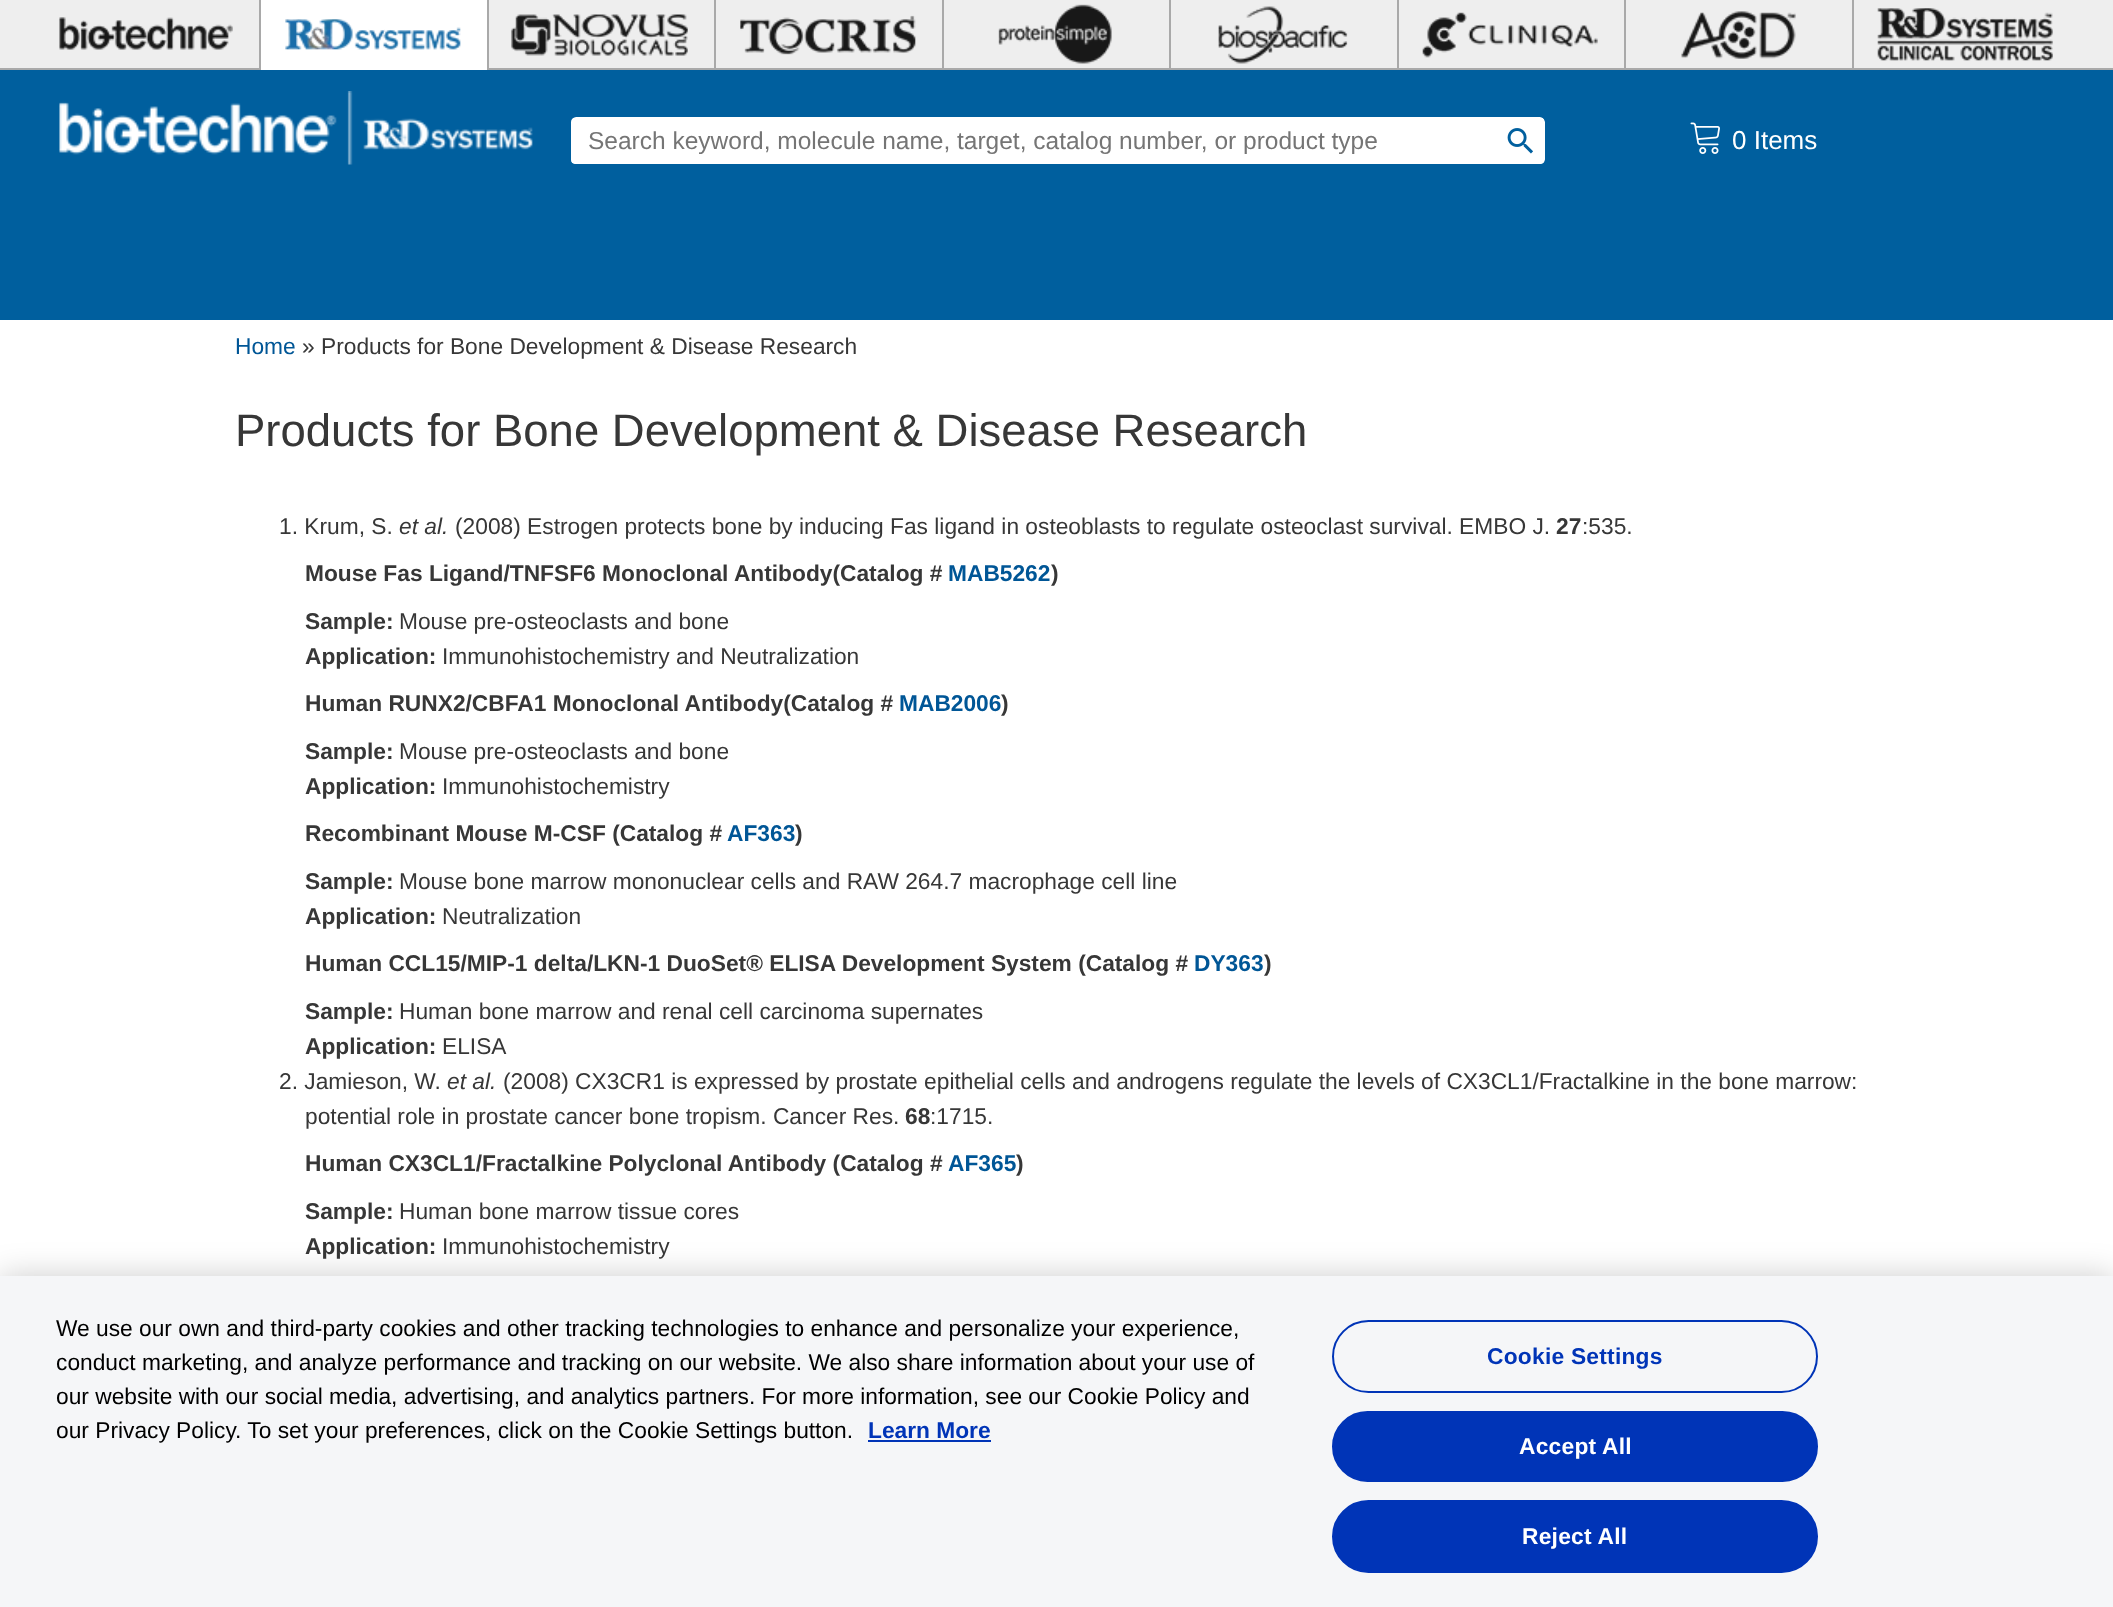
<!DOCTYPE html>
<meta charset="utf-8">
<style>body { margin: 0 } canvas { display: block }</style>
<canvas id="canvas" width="2113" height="1607"></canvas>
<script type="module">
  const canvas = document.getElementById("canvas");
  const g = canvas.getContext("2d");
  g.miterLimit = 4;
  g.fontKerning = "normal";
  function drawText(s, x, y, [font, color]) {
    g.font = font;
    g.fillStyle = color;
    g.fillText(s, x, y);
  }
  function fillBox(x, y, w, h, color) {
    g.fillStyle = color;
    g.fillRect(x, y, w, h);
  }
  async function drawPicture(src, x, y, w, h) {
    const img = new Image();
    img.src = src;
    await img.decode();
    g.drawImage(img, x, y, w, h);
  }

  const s1 = ["24.5px Liberation Sans", "#757575"];
  const s2 = ["26px Liberation Sans", "#FFFFFF"];
  const s3 = ["22.75px Liberation Sans", "#005696"];
  const s4 = ["22.75px Liberation Sans", "#373737"];
  const s5 = ["45.5px Liberation Sans", "#373737"];
  const s6 = ["italic 22.75px Liberation Sans", "#373737"];
  const s7 = ["bold 22.75px Liberation Sans", "#373737"];
  const s8 = ["bold 22.75px Liberation Sans", "#005696"];
  const s9 = ["22.75px Liberation Sans", "#000000"];
  const s10 = ["bold 22.75px Liberation Sans", "#0034B7"];
  const s11 = ["bold 22.75px Liberation Sans", "#FFFFFF"];

  fillBox(0, 0, 2113, 1607, "#FFFFFF");
  fillBox(0, 70, 2113, 250, "#005F9E");
  fillBox(0, 0, 2113, 68, "#EEEEEE");
  fillBox(0, 68, 2113, 2, "#A9A9A9");
  fillBox(259, 0, 2, 70, "#A9A9A9");
  await drawPicture("pic1.png", 59, 17, 174, 33);
  fillBox(261, 0, 226, 70, "#FFFFFF");
  fillBox(487, 0, 2, 70, "#A9A9A9");
  await drawPicture("pic2.png", 285, 19, 176, 31);
  fillBox(714, 0, 2, 70, "#A9A9A9");
  await drawPicture("pic3.png", 511, 14, 177, 42);
  fillBox(942, 0, 2, 70, "#A9A9A9");
  await drawPicture("pic4.png", 740, 15, 176, 40);
  fillBox(1169, 0, 2, 70, "#A9A9A9");
  await drawPicture("pic5.png", 998, 4, 114, 60);
  fillBox(1397, 0, 2, 70, "#A9A9A9");
  await drawPicture("pic6.png", 1218, 6, 130, 58);
  fillBox(1624, 0, 2, 70, "#A9A9A9");
  await drawPicture("pic7.png", 1422, 12, 176, 46);
  fillBox(1852, 0, 2, 70, "#A9A9A9");
  await drawPicture("pic8.png", 1681, 11, 115, 48);
  await drawPicture("pic9.png", 1877, 8, 176, 53);
  await drawPicture("pic10.png", 59, 91, 474, 74);
  g.fillStyle = "#FFFFFF";
  g.beginPath();
  g.roundRect(571, 117, 908, 48, [5, 0, 0, 5]);
  g.fill();
  g.fillStyle = "#005F9E";
  g.beginPath();
  g.moveTo(576, 116);
  g.lineTo(1479, 116);
  g.lineTo(1479, 166);
  g.lineTo(576, 166);
  g.bezierCurveTo(572, 166, 569, 163, 569, 159);
  g.lineTo(569, 122);
  g.bezierCurveTo(569, 119, 572, 116, 576, 116);
  g.closePath();
  g.moveTo(576, 117);
  g.lineTo(1479, 117);
  g.lineTo(1479, 164);
  g.lineTo(576, 164);
  g.bezierCurveTo(573, 164, 570, 162, 570, 159);
  g.lineTo(570, 122);
  g.bezierCurveTo(570, 120, 573, 117, 576, 117);
  g.closePath();
  g.fill("evenodd");
  g.save();
  g.beginPath();
  g.rect(588, 126, 873, 28);
  g.clip();
  drawText("Search keyword, molecule name, target, catalog number, or product type", 588, 149, s1);
  g.restore();
  g.fillStyle = "#FFFFFF";
  g.beginPath();
  g.roundRect(1479, 117, 66, 48, [0, 5, 5, 0]);
  g.fill();
  g.fillStyle = "#005F9E";
  g.beginPath();
  g.moveTo(1479, 116);
  g.lineTo(1540, 116);
  g.bezierCurveTo(1544, 116, 1547, 119, 1547, 122);
  g.lineTo(1547, 159);
  g.bezierCurveTo(1547, 163, 1544, 166, 1540, 166);
  g.lineTo(1479, 166);
  g.closePath();
  g.moveTo(1479, 117);
  g.lineTo(1540, 117);
  g.bezierCurveTo(1543, 117, 1545, 120, 1545, 122);
  g.lineTo(1545, 159);
  g.bezierCurveTo(1545, 162, 1543, 164, 1540, 164);
  g.lineTo(1479, 164);
  g.closePath();
  g.fill("evenodd");
  await drawPicture("pic11.png", 1507, 128, 26, 26);
  await drawPicture("pic12.png", 1690, 122, 30, 32);
  drawText("0 Items", 1732, 149, s2);
  drawText("Home", 235, 354, s3);
  drawText("» Products for Bone Development & Disease Research", 302, 354, s4);
  drawText("Products for Bone Development & Disease Research", 235, 446, s5);
  drawText("1. Krum, S.", 279, 534, s4);
  drawText("et al.", 399, 534, s6);
  drawText("(2008) Estrogen protects bone by inducing Fas ligand in osteoblasts to regulate osteoclast survival. EMBO J.", 455, 534, s4);
  drawText("27", 1556, 534, s7);
  drawText(":535.", 1582, 534, s4);
  drawText("Mouse Fas Ligand/TNFSF6 Monoclonal Antibody(Catalog #", 305, 581, s7);
  drawText("MAB5262", 948, 581, s8);
  drawText(")", 1051, 581, s7);
  drawText("Sample:", 305, 629, s7);
  drawText("Mouse pre-osteoclasts and bone", 399, 629, s4);
  drawText("Application:", 305, 664, s7);
  drawText("Immunohistochemistry and Neutralization", 442, 664, s4);
  drawText("Human RUNX2/CBFA1 Monoclonal Antibody(Catalog #", 305, 711, s7);
  drawText("MAB2006", 899, 711, s8);
  drawText(")", 1001, 711, s7);
  drawText("Sample:", 305, 759, s7);
  drawText("Mouse pre-osteoclasts and bone", 399, 759, s4);
  drawText("Application:", 305, 794, s7);
  drawText("Immunohistochemistry", 442, 794, s4);
  drawText("Recombinant Mouse M-CSF (Catalog #", 305, 841, s7);
  drawText("AF363", 727, 841, s8);
  drawText(")", 795, 841, s7);
  drawText("Sample:", 305, 889, s7);
  drawText("Mouse bone marrow mononuclear cells and RAW 264.7 macrophage cell line", 399, 889, s4);
  drawText("Application:", 305, 924, s7);
  drawText("Neutralization", 442, 924, s4);
  drawText("Human CCL15/MIP-1 delta/LKN-1 DuoSet® ELISA Development System (Catalog #", 305, 971, s7);
  drawText("DY363", 1194, 971, s8);
  drawText(")", 1264, 971, s7);
  drawText("Sample:", 305, 1019, s7);
  drawText("Human bone marrow and renal cell carcinoma supernates", 399, 1019, s4);
  drawText("Application:", 305, 1054, s7);
  drawText("ELISA", 442, 1054, s4);
  drawText("2. Jamieson, W.", 279, 1089, s4);
  drawText("et al.", 447, 1089, s6);
  drawText("(2008) CX3CR1 is expressed by prostate epithelial cells and androgens regulate the levels of CX3CL1/Fractalkine in the bone marrow:", 503, 1089, s4);
  drawText("potential role in prostate cancer bone tropism. Cancer Res.", 305, 1124, s4);
  drawText("68", 905, 1124, s7);
  drawText(":1715.", 930, 1124, s4);
  drawText("Human CX3CL1/Fractalkine Polyclonal Antibody (Catalog #", 305, 1171, s7);
  drawText("AF365", 948, 1171, s8);
  drawText(")", 1016, 1171, s7);
  drawText("Sample:", 305, 1219, s7);
  drawText("Human bone marrow tissue cores", 399, 1219, s4);
  drawText("Application:", 305, 1254, s7);
  drawText("Immunohistochemistry", 442, 1254, s4);
  g.fillStyle = "rgba(0, 0, 0, 0.2)";
  g.filter = "blur(16px)";
  g.beginPath();
  g.rect(0, 1276, 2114, 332);
  g.fill();
  g.filter = "none";
  fillBox(0, 1276, 2113, 331, "#F5F6F8");
  drawText("We use our own and third-party cookies and other tracking technologies to enhance and personalize your experience,", 56, 1336, s9);
  drawText("conduct marketing, and analyze performance and tracking on our website. We also share information about your use of", 56, 1370, s9);
  drawText("our website with our social media, advertising, and analytics partners. For more information, see our Cookie Policy and", 56, 1404, s9);
  drawText("our Privacy Policy. To set your preferences, click on the Cookie Settings button.", 56, 1438, s9);
  drawText("Learn More", 868, 1438, s10);
  fillBox(868, 1440, 123, 2, "#0034B7");
  g.beginPath();
  g.roundRect(1333, 1321, 484, 71, 35.5);
  g.strokeStyle = "#0034B7";
  g.lineWidth = 2;
  g.stroke();
  g.letterSpacing = "0.25px";
  drawText("Cookie Settings", 1487, 1364, s10);
  g.beginPath();
  g.roundRect(1333, 1412, 484, 69, 34.5);
  g.fill();
  g.stroke();
  drawText("Accept All", 1519, 1454, s11);
  g.fillStyle = "#0034B7";
  g.beginPath();
  g.roundRect(1333, 1501, 484, 71, 35.5);
  g.fill();
  g.stroke();
  drawText("Reject All", 1522, 1544, s11);
</script>
